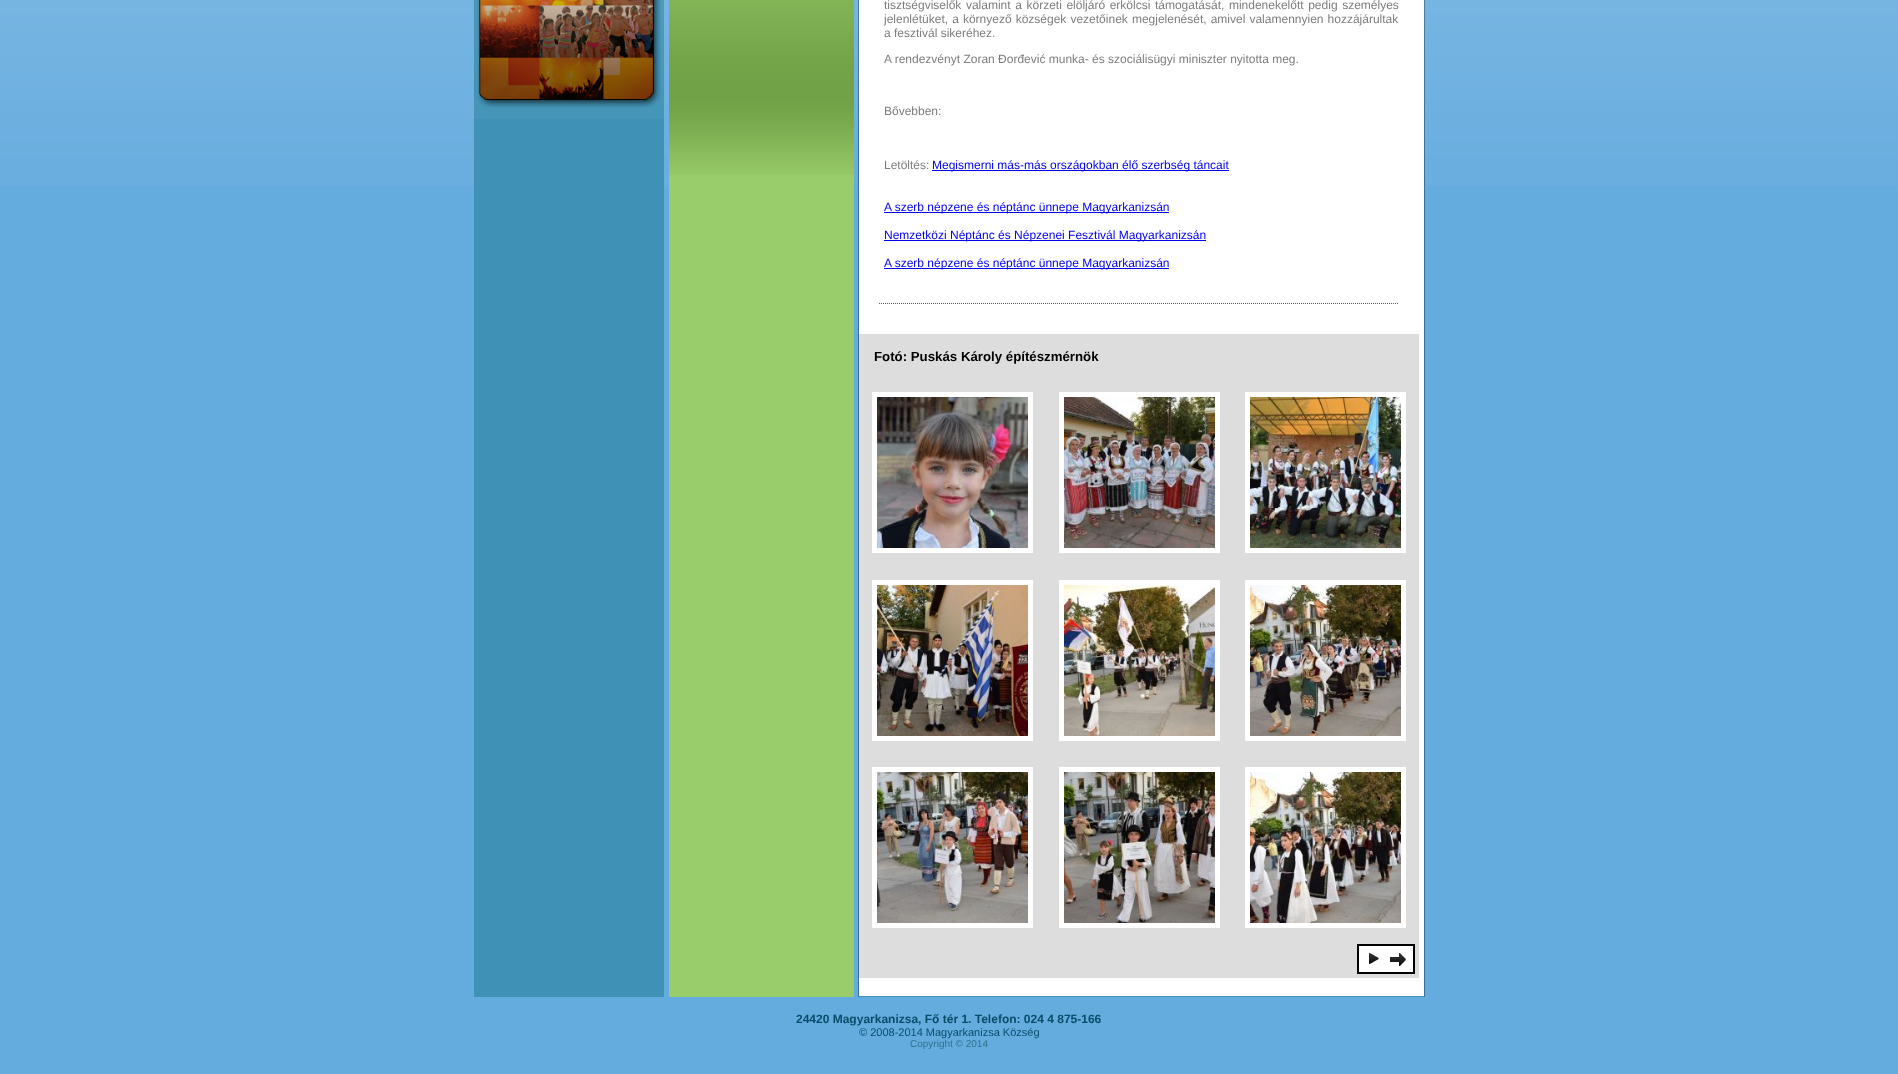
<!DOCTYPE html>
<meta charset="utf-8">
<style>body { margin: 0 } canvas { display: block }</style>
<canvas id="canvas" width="1898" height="1074"></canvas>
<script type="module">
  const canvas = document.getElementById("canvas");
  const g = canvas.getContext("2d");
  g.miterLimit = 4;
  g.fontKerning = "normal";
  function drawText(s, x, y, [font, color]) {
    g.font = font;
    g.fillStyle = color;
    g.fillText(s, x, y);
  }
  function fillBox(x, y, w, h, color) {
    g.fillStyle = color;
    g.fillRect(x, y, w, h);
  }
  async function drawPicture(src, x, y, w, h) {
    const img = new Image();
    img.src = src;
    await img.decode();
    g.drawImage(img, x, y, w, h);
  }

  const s1 = ["12px Liberation Sans", "#7D7D7E"];
  const s2 = ["12px Liberation Sans", "#0000EE"];
  const s3 = ["bold 13.25px Liberation Sans", "#000000"];
  const s4 = ["bold 12px Liberation Sans", "#0A4D69"];
  const s5 = ["11px Liberation Sans", "#0A4D69"];
  const s6 = ["10px Liberation Sans", "#31728D"];

  fillBox(0, 0, 1898, 1074, "#64ABDE");
  await drawPicture("pic1.png", 0, 0, 1898, 187);
  fillBox(474, 119, 190, 878, "#3F92B5");
  await drawPicture("pic2.png", 474, 0, 190, 119);
  await drawPicture("pic3.png", 474, 0, 187, 108);
  fillBox(669, 175, 185, 822, "#99CC6A");
  await drawPicture("pic4.png", 669, 0, 185, 175);
  fillBox(858, 189, 1, 808, "#376F97");
  await drawPicture("pic5.png", 858, 0, 1, 189);
  fillBox(859, 0, 565, 996, "#FFFFFF");
  fillBox(859, 996, 565, 1, "#3F92B5");
  g.beginPath();
  g.moveTo(879, 303.5);
  g.lineTo(1399, 303.5);
  g.strokeStyle = "#296D9F";
  g.setLineDash([1, 1]);
  g.stroke();
  g.wordSpacing = "1.25px";
  drawText("tisztségviselők valamint a körzeti elöljáró erkölcsi támogatását, mindenekelőtt pedig személyes", 884, 9, s1);
  g.wordSpacing = "0.75px";
  drawText("jelenlétüket, a környező községek vezetőinek megjelenését, amivel valamennyien hozzájárultak", 884, 23, s1);
  g.wordSpacing = "0px";
  drawText("a fesztivál sikeréhez.", 884, 37, s1);
  drawText("A rendezvényt Zoran Đorđević munka- és szociálisügyi miniszter nyitotta meg.", 884, 63, s1);
  drawText("Bővebben:", 884, 115, s1);
  drawText("Letöltés:", 884, 169, s1);
  fillBox(932, 170, 297, 1, "#0000EE");
  drawText("Megismerni más-más országokban élő szerbség táncait", 932, 169, s2);
  fillBox(884, 212, 285, 1, "#0000EE");
  drawText("A szerb népzene és néptánc ünnepe Magyarkanizsán", 884, 211, s2);
  fillBox(884, 240, 322, 1, "#0000EE");
  drawText("Nemzetközi Néptánc és Népzenei Fesztivál Magyarkanizsán", 884, 239, s2);
  fillBox(884, 268, 285, 1, "#0000EE");
  drawText("A szerb népzene és néptánc ünnepe Magyarkanizsán", 884, 267, s2);
  fillBox(859, 334, 560, 644, "#DDDDDD");
  drawText("Fotó: Puskás Károly építészmérnök", 874, 361, s3);
  g.strokeStyle = "#FFFFFF";
  g.lineWidth = 5;
  g.setLineDash([]);
  g.strokeRect(874.5, 394.5, 156, 156);
  await drawPicture("pic6.png", 877, 397, 151, 151);
  g.strokeRect(1061.5, 394.5, 156, 156);
  await drawPicture("pic7.png", 1064, 397, 151, 151);
  g.strokeRect(1247.5, 394.5, 156, 156);
  await drawPicture("pic8.png", 1250, 397, 151, 151);
  g.strokeRect(874.5, 582.5, 156, 156);
  await drawPicture("pic9.png", 877, 585, 151, 151);
  g.strokeRect(1061.5, 582.5, 156, 156);
  await drawPicture("pic10.png", 1064, 585, 151, 151);
  g.strokeRect(1247.5, 582.5, 156, 156);
  await drawPicture("pic11.png", 1250, 585, 151, 151);
  g.strokeRect(874.5, 769.5, 156, 156);
  await drawPicture("pic12.png", 877, 772, 151, 151);
  g.strokeRect(1061.5, 769.5, 156, 156);
  await drawPicture("pic13.png", 1064, 772, 151, 151);
  g.strokeRect(1247.5, 769.5, 156, 156);
  await drawPicture("pic14.png", 1250, 772, 151, 151);
  g.fillStyle = "#FFFFFF";
  g.beginPath();
  g.rect(1358, 945, 56, 28);
  g.fill();
  g.strokeStyle = "#000000";
  g.lineWidth = 2;
  g.stroke();
  await drawPicture("pic15.png", 1369, 953, 10, 11);
  await drawPicture("pic16.png", 1390, 953, 16, 13);
  fillBox(1424, 189, 1, 808, "#376F97");
  await drawPicture("pic5.png", 1424, 0, 1, 189);
  drawText("24420 Magyarkanizsa, Fő tér 1. Telefon: 024 4 875-166", 796, 1023, s4);
  drawText("© 2008-2014 Magyarkanizsa Község", 859, 1036, s5);
  drawText("Copyright © 2014", 910, 1047, s6);
</script>
